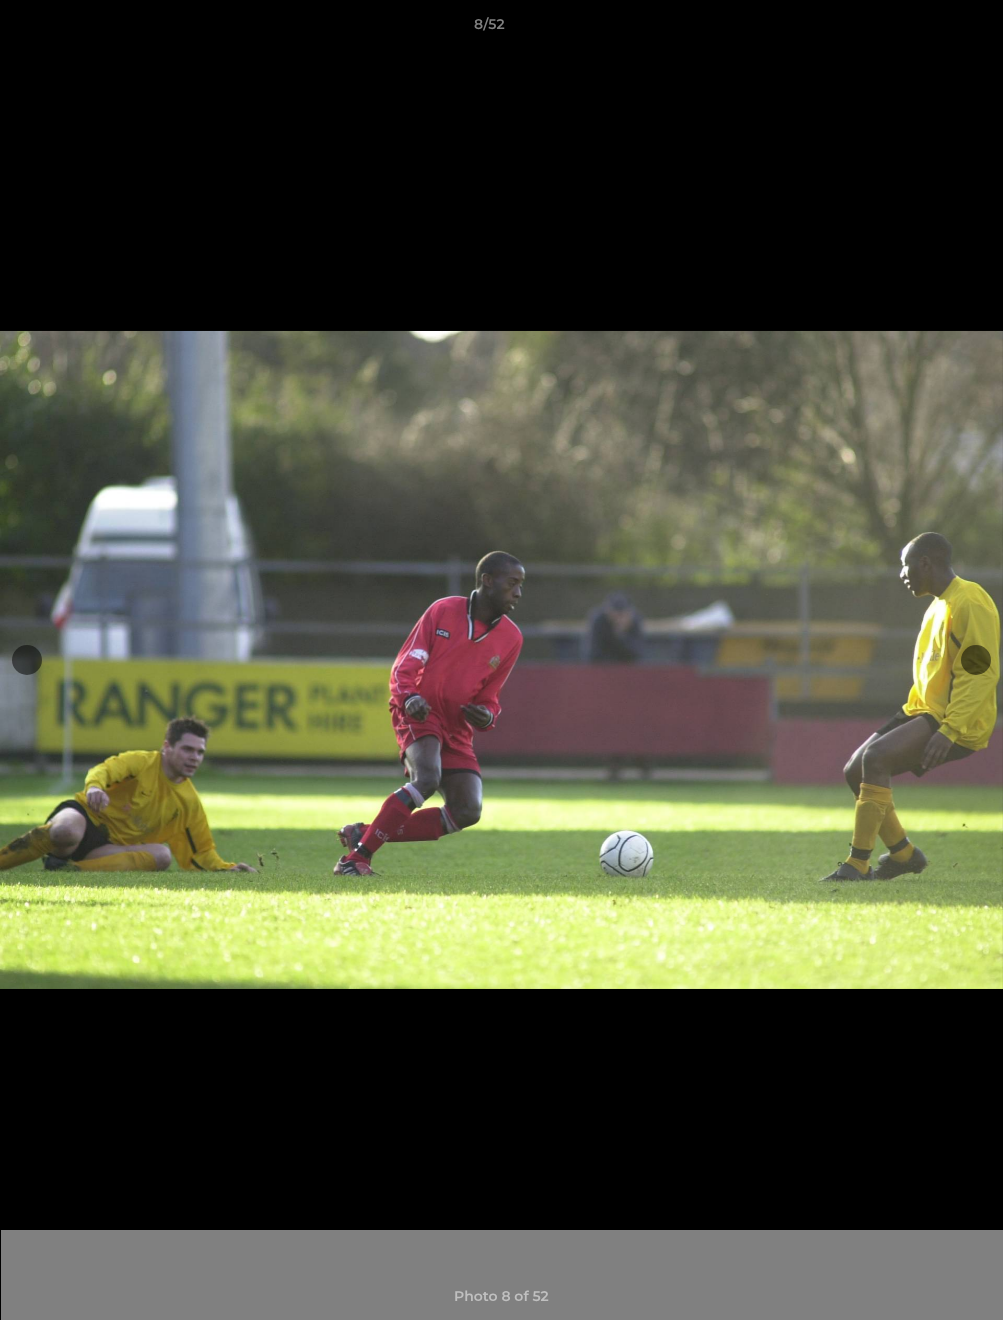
<!DOCTYPE html>
<meta charset="utf-8">
<style>body { margin: 0 } canvas { display: block }</style>
<canvas id="canvas" width="1003" height="1320"></canvas>
<script type="module">
  const canvas = document.getElementById("canvas");
  const g = canvas.getContext("2d");
  g.miterLimit = 4;
  g.fontKerning = "normal";
  function drawText(s, x, y, [font, color]) {
    g.font = font;
    g.fillStyle = color;
    g.fillText(s, x, y);
  }
  function fillBox(x, y, w, h, color) {
    g.fillStyle = color;
    g.fillRect(x, y, w, h);
  }
  async function drawPicture(src, x, y, w, h) {
    const img = new Image();
    img.src = src;
    await img.decode();
    g.drawImage(img, x, y, w, h);
  }

  const s1 = ["600 14px Montserrat", "#808080"];
  const s2 = ["600 14px Montserrat", "#C0C0C0"];

  fillBox(0, 0, 1003, 1320, "#000000");
  fillBox(1, 1230, 1002, 90, "#808080");
  drawText("8/52", 474, 29, s1);
  await drawPicture("pic1.png", 0, 330, 1003, 659);
  g.fillStyle = "rgba(0, 0, 0, 0.5)";
  g.beginPath();
  g.arc(27, 660, 15, 0, Math.PI * 2);
  g.fill();
  g.beginPath();
  g.arc(976, 660, 15, 0, Math.PI * 2);
  g.fill();
  drawText("Photo 8 of 52", 454, 1301, s2);
</script>
